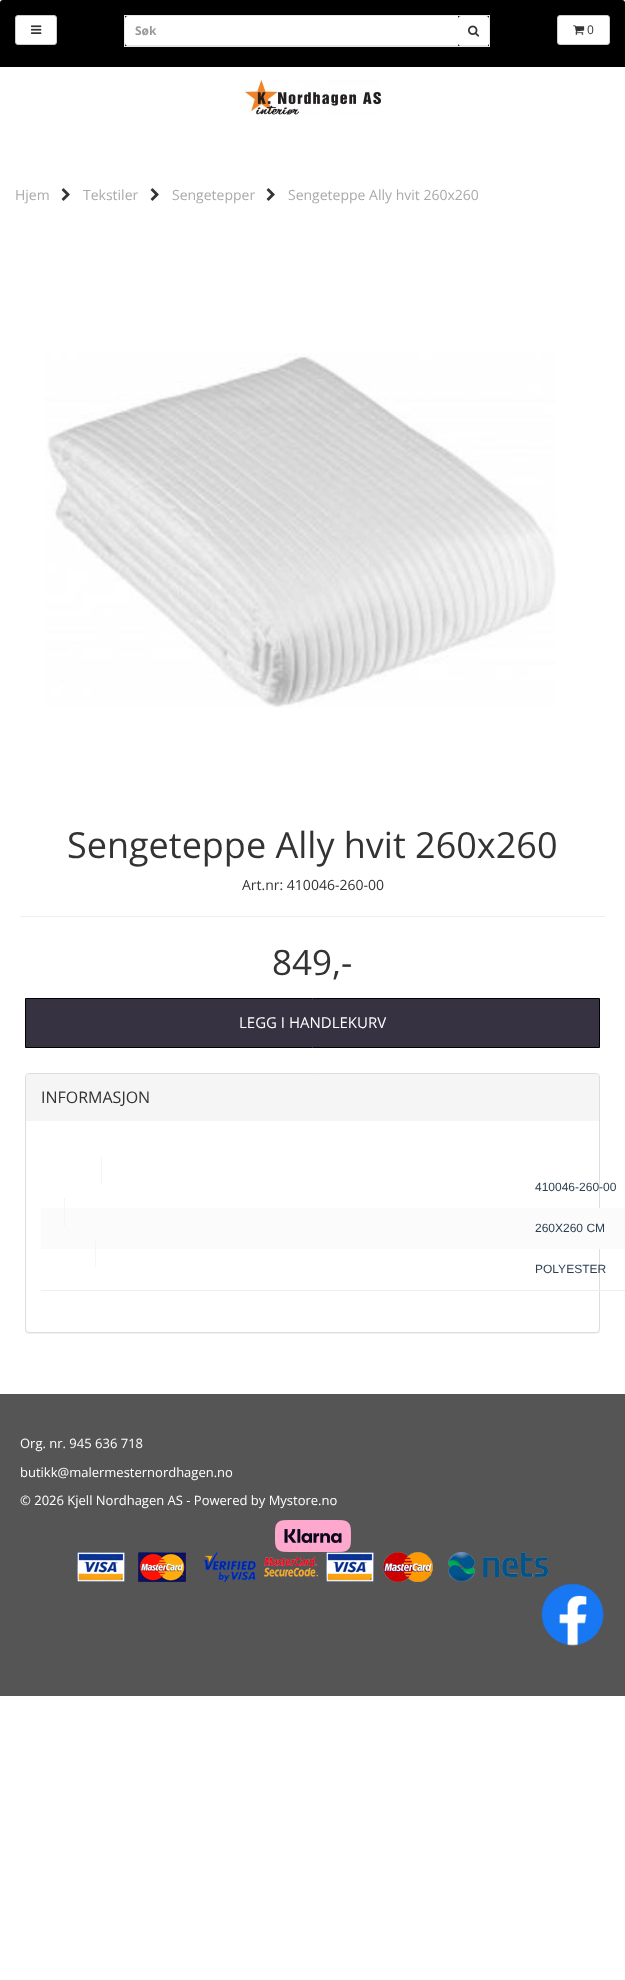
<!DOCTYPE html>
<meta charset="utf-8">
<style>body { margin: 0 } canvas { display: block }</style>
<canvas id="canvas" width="625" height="1980"></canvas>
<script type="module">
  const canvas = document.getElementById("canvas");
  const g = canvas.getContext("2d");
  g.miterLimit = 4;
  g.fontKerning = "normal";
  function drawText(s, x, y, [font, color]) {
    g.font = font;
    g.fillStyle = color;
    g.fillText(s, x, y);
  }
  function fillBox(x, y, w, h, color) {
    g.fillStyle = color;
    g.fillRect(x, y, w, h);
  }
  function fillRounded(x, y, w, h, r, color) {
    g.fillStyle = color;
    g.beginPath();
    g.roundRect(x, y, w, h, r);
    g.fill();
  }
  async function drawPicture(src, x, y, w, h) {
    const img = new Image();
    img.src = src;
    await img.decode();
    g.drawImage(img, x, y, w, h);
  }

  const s1 = ["bold 12px Open Sans", "#999999"];
  const s2 = ["12px Open Sans", "#333333"];
  const s3 = ["14px Open Sans", "#AAAAAA"];
  const s4 = ["36px Open Sans", "#333333"];
  const s5 = ["14px Open Sans", "#333333"];
  const s6 = ["35px Open Sans", "#333333"];
  const s7 = ["15px Open Sans", "#FFFFFF"];
  const s8 = ["16px Open Sans", "#333333"];
  const s9 = ["12px Liberation Sans", "#2C3E50"];
  const s10 = ["13px Open Sans", "#FFFFFF"];

  fillBox(0, 0, 625, 1980, "#FFFFFF");
  g.fillStyle = "#000000";
  g.beginPath();
  g.roundRect(0, 0, 625, 67, [3, 3, 0, 0]);
  g.fill();
  g.fillStyle = "#FFFFFF";
  g.beginPath();
  g.roundRect(15.5, 15.5, 41, 29, 2.5);
  g.fill();
  g.strokeStyle = "#CCCCCC";
  g.stroke();
  await drawPicture("pic1.png", 31, 25, 11, 9);
  g.strokeStyle = "#E7E7E7";
  g.strokeRect(124.5, 15.5, 365, 31);
  g.beginPath();
  g.roundRect(125, 16, 333, 30, [3, 0, 0, 3]);
  g.fill();
  fillBox(127, 45, 331, 1, "#E5E5E5");
  drawText("Søk", 135, 35, s1);
  fillRounded(458, 16, 31, 30, 3, "#FFFFFF");
  fillBox(460, 45, 28, 1, "#E5E5E5");
  await drawPicture("pic2.png", 468, 25, 12, 12);
  g.fillStyle = "#FFFFFF";
  g.beginPath();
  g.roundRect(557.5, 15.5, 52, 29, 2.5);
  g.fill();
  g.strokeStyle = "#CCCCCC";
  g.stroke();
  await drawPicture("pic3.png", 573, 25, 12, 10);
  drawText("0", 587, 34, s2);
  await drawPicture("pic4.png", 245, 80, 136, 35);
  drawText("Hjem", 15, 200, s3);
  await drawPicture("pic5.png", 61, 188, 9, 13);
  drawText("Tekstiler", 83, 200, s3);
  await drawPicture("pic5.png", 150, 188, 9, 13);
  drawText("Sengetepper", 172, 200, s3);
  await drawPicture("pic5.png", 266, 188, 9, 13);
  drawText("Sengeteppe Ally hvit 260x260", 288, 200, s3);
  await drawPicture("pic6.png", 45, 353, 511, 355);
  drawText("Sengeteppe Ally hvit 260x260", 67, 858, s4);
  drawText("Art.nr: 410046-260-00", 242, 890, s5);
  fillBox(20, 916, 585, 1, "#EEEEEE");
  drawText("849,-", 272, 975, s6);
  g.fillStyle = "#363241";
  g.beginPath();
  g.rect(25.5, 998.5, 574, 49);
  g.fill();
  g.strokeStyle = "#000000";
  g.stroke();
  drawText("LEGG I HANDLEKURV", 239, 1028, s7);
  g.fillStyle = "rgba(0, 0, 0, 0.05)";
  g.filter = "blur(0.5px)";
  g.beginPath();
  g.roundRect(25, 1074, 575, 260, 4);
  g.fill();
  g.filter = "none";
  g.fillStyle = "#FFFFFF";
  g.beginPath();
  g.roundRect(25.5, 1073.5, 574, 259, 3.5);
  g.fill();
  g.strokeStyle = "#DDDDDD";
  g.stroke();
  g.fillStyle = "#F5F5F5";
  g.beginPath();
  g.roundRect(26, 1074, 573, 47, [3, 3, 0, 0]);
  g.fill();
  drawText("INFORMASJON", 41, 1103, s8);
  fillBox(101, 1157, 1, 28, "#F5F5F5");
  drawText("410046-260-00", 535, 1191, s9);
  fillBox(41, 1208, 584, 41, "#FBFBFB");
  fillBox(64, 1198, 1, 28, "#F5F5F5");
  drawText("260X260 CM", 535, 1232, s9);
  fillBox(41, 1290, 584, 1, "#EEEEEE");
  fillBox(95, 1239, 1, 28, "#F5F5F5");
  drawText("POLYESTER", 535, 1273, s9);
  fillBox(0, 1394, 625, 302, "#555555");
  drawText("Org. nr. 945 636 718", 20, 1448, s10);
  drawText("butikk@malermesternordhagen.no", 20, 1477, s10);
  drawText("© 2026 Kjell Nordhagen AS - Powered by Mystore.no", 20, 1505, s10);
  await drawPicture("pic7.png", 275, 1520, 76, 32);
  await drawPicture("pic8.png", 77, 1552, 48, 30);
  await drawPicture("pic9.png", 138, 1552, 48, 30);
  await drawPicture("pic10.png", 203, 1552, 230, 30);
  await drawPicture("pic11.png", 448, 1552, 100, 30);
  await drawPicture("pic12.png", 541, 1583, 63, 63);
</script>
